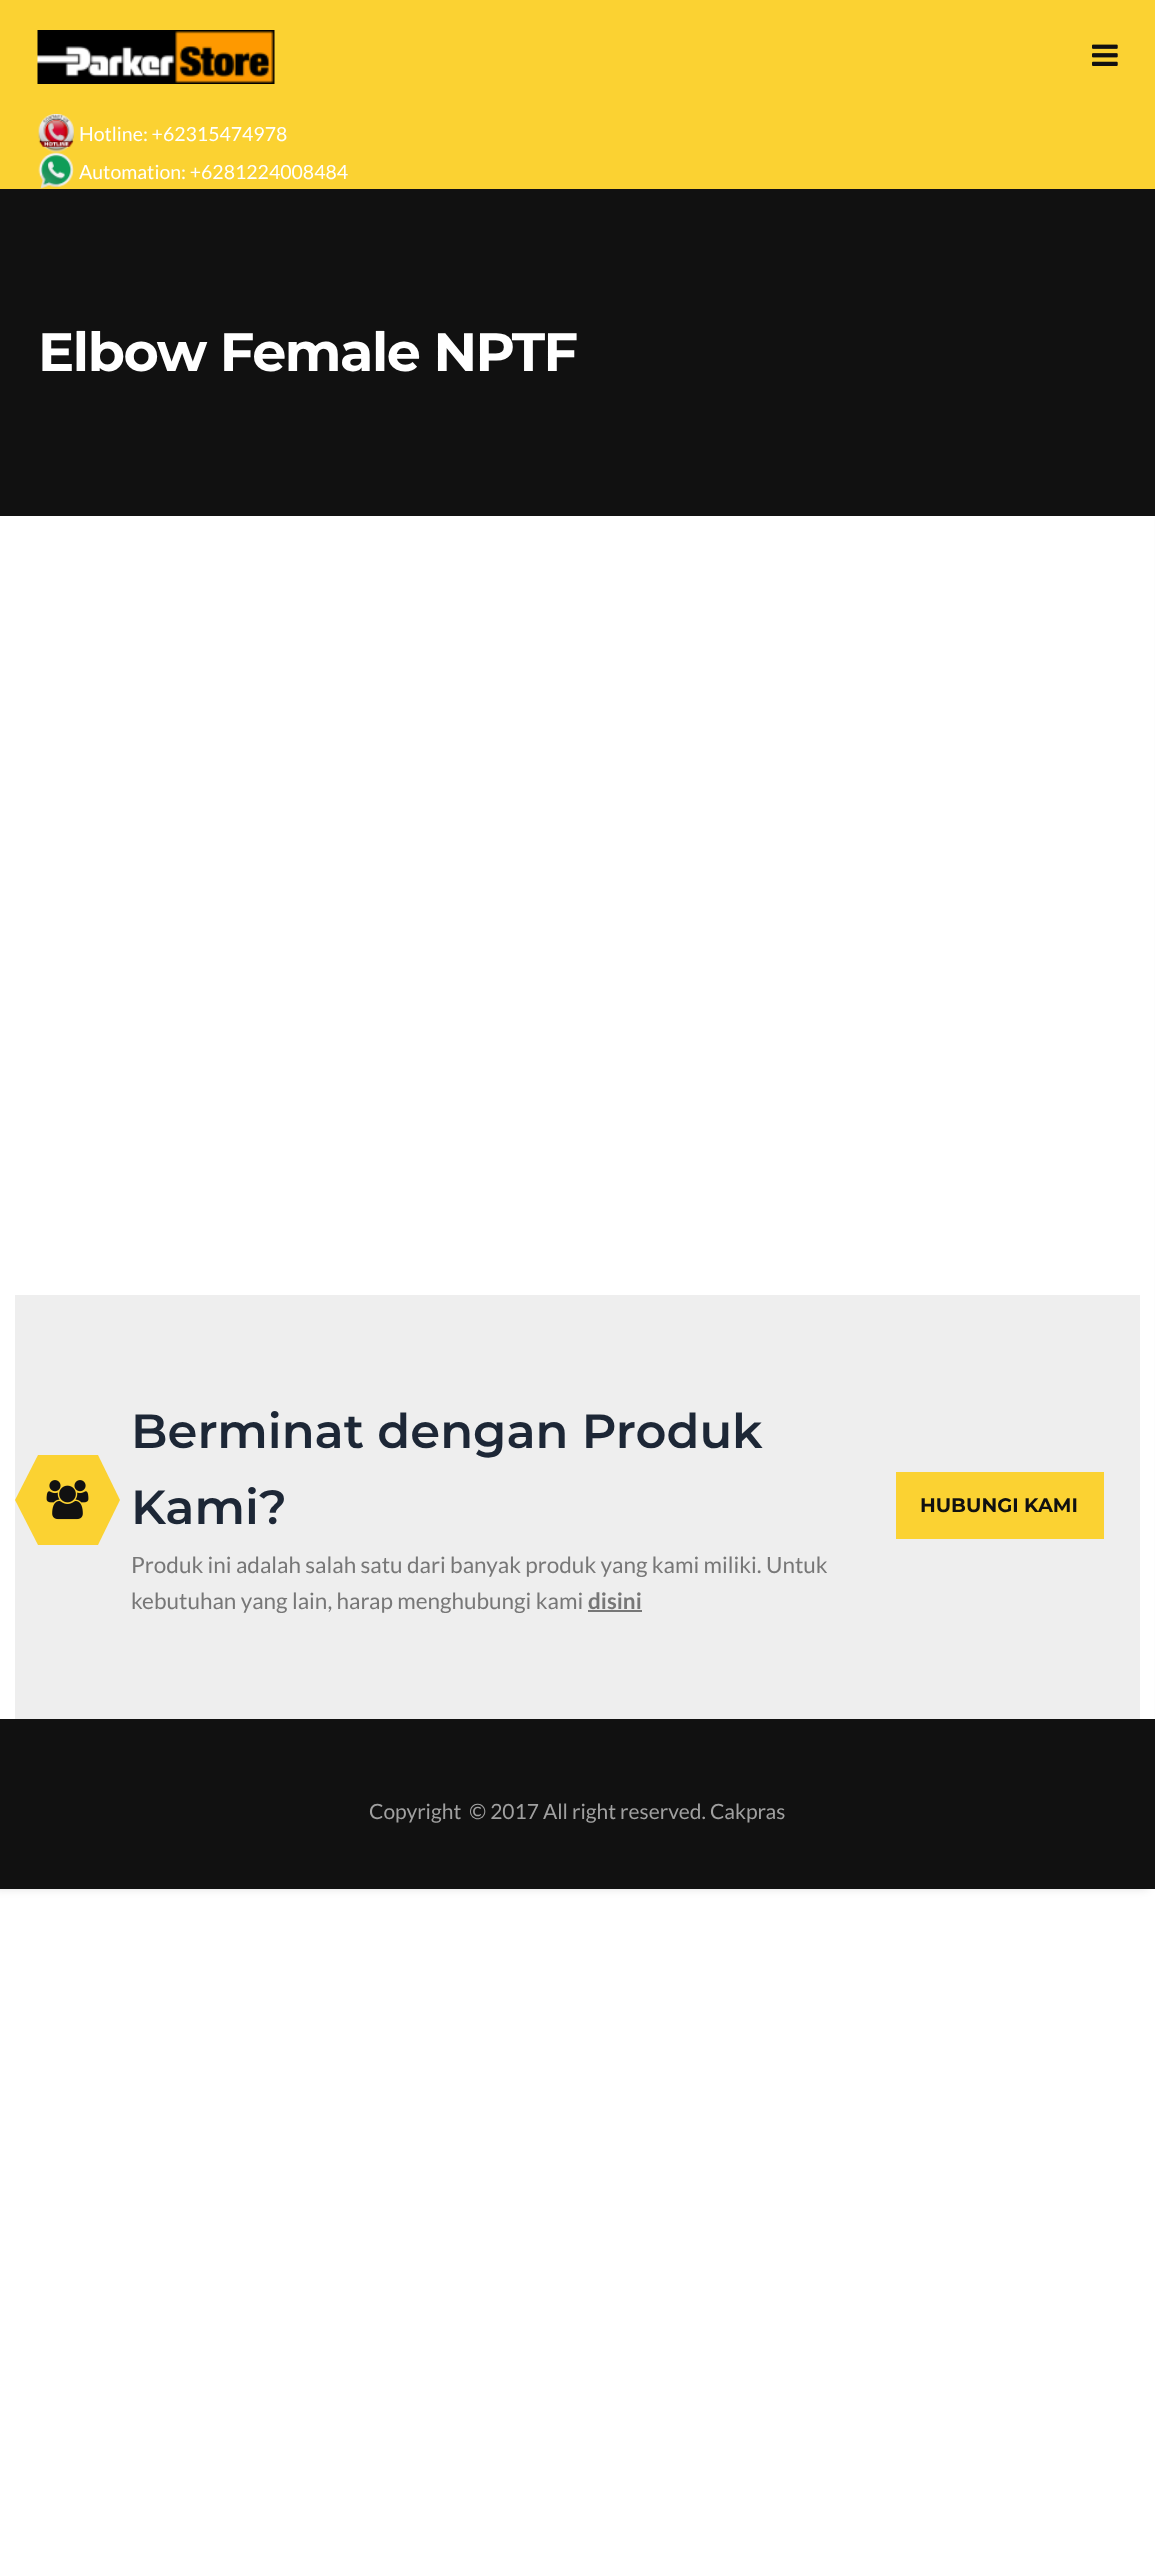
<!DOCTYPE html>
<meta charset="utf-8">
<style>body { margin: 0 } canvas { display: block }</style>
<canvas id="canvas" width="1155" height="2562"></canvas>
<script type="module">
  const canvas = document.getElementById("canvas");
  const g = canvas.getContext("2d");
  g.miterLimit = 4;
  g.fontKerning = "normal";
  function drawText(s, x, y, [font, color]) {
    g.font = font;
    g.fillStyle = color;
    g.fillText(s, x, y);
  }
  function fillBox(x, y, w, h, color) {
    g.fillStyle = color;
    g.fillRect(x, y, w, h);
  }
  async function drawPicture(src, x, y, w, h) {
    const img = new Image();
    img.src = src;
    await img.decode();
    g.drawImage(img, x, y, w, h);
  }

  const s1 = ["19.5px Lato", "#FFFFFF"];
  const s2 = ["bold 54px Montserrat", "#FFFFFF"];
  const s3 = ["600 48px Montserrat", "#1D2736"];
  const s4 = ["22.5px Lato", "#777777"];
  const s5 = ["bold 22.5px Lato", "#777777"];
  const s6 = ["bold 19.5px Montserrat", "#111111"];
  const s7 = ["21px Lato", "#A0A0A0"];

  fillBox(0, 0, 1155, 2562, "#FFFFFF");
  g.fillStyle = "rgba(0, 0, 0, 0.12)";
  g.filter = "blur(4px)";
  g.beginPath();
  g.rect(-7, 0, 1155, 1889);
  g.fill();
  g.filter = "none";
  fillBox(0, 516, 1154, 1203, "#FFFFFF");
  fillBox(0, 0, 1155, 189, "#FBD232");
  await drawPicture("pic1.png", 37, 30, 238, 54);
  await drawPicture("pic2.png", 1092, 44, 26, 22);
  await drawPicture("pic3.png", 38, 114, 36, 38);
  drawText("Hotline: +62315474978", 79, 141, s1);
  await drawPicture("pic4.png", 38, 152, 36, 37);
  drawText("Automation: +6281224008484", 79, 179, s1);
  fillBox(0, 189, 1155, 327, "#111111");
  g.letterSpacing = "-1.4px";
  drawText("Elbow Female NPTF", 38, 371, s2);
  fillBox(15, 1295, 1125, 424, "#EEEEEE");
  g.fillStyle = "#FBD232";
  g.beginPath();
  g.moveTo(38, 1455);
  g.lineTo(38, 1545);
  g.lineTo(15, 1500);
  g.closePath();
  g.fill();
  fillBox(38, 1455, 60, 90, "#FBD232");
  await drawPicture("pic5.png", 46, 1480, 43, 40);
  g.beginPath();
  g.moveTo(98, 1545);
  g.lineTo(98, 1455);
  g.lineTo(120, 1500);
  g.closePath();
  g.fill();
  g.letterSpacing = "0px";
  drawText("Berminat dengan Produk", 131, 1448, s3);
  drawText("Kami?", 131, 1524, s3);
  drawText("Produk ini adalah salah satu dari banyak produk yang kami miliki. Untuk", 131, 1573, s4);
  drawText("kebutuhan yang lain, harap menghubungi kami", 131, 1609, s4);
  drawText("disini", 588, 1609, s5);
  fillBox(588, 1610, 54, 2, "#777777");
  fillBox(896, 1472, 208, 67, "#FBD232");
  drawText("HUBUNGI KAMI", 920, 1512, s6);
  fillBox(0, 1719, 1155, 170, "#111111");
  drawText("Copyright  © 2017 All right reserved. Cakpras", 369, 1819, s7);
</script>
